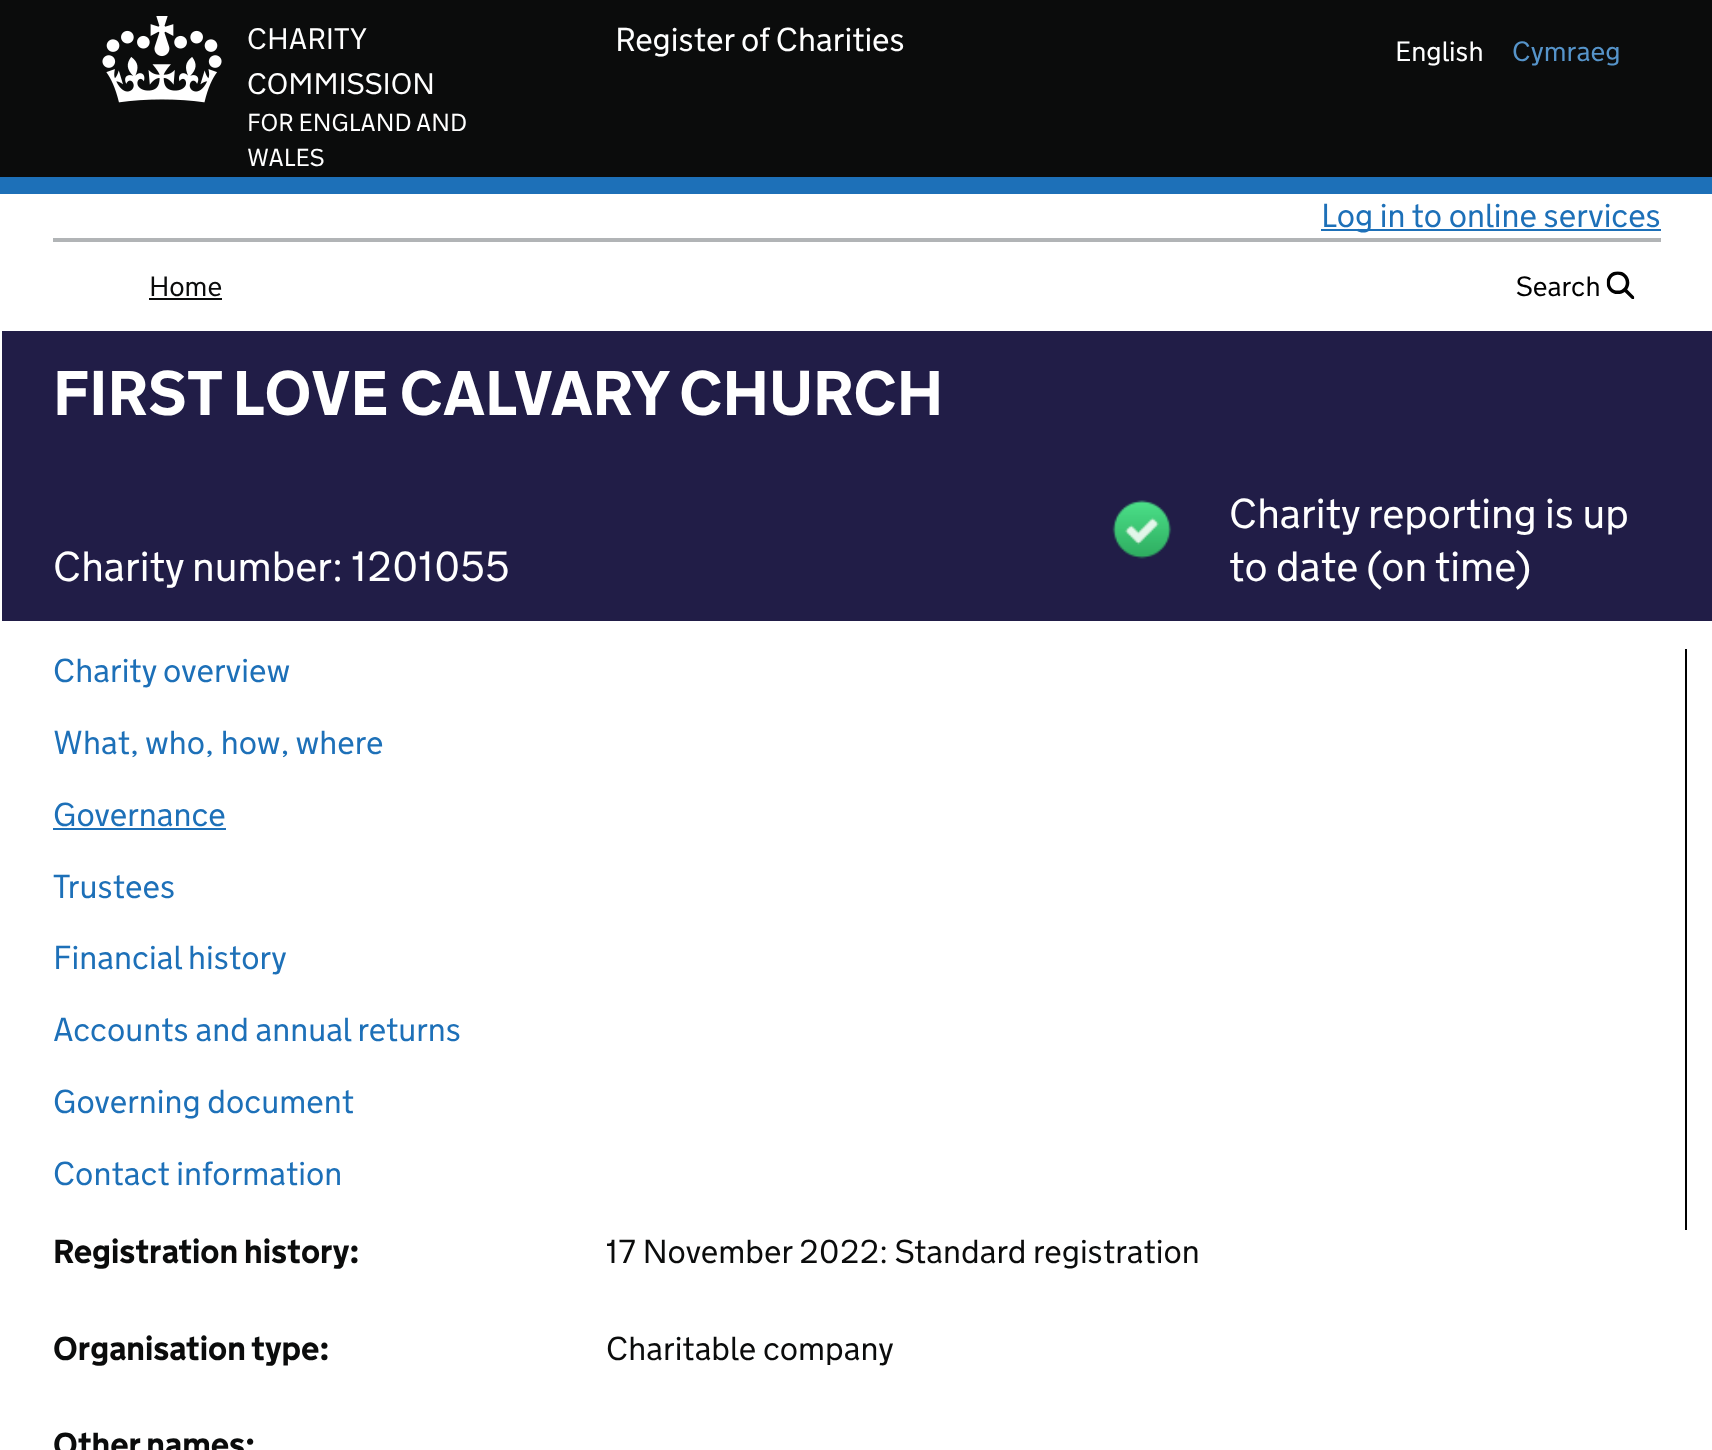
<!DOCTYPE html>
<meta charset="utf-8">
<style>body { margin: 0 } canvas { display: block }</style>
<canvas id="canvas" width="1712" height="1450"></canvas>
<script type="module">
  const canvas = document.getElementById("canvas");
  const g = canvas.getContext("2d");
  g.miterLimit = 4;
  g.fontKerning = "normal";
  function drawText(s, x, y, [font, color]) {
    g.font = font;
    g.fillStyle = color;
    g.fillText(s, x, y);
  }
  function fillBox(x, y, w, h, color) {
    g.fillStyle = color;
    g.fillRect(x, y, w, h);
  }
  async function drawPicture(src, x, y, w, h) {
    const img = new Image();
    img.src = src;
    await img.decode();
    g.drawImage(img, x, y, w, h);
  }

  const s1 = ["300 29.75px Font", "#FFFFFF"];
  const s2 = ["300 24.5px Font", "#FFFFFF"];
  const s3 = ["300 33.25px Font", "#FFFFFF"];
  const s4 = ["300 28px Font", "#FFFFFF"];
  const s5 = ["300 28px Font", "#5694CA"];
  const s6 = ["300 33.25px Font", "#1D70B8"];
  const s7 = ["300 28px Font", "#0B0C0C"];
  const s8 = ["300 28px Font", "#000000"];
  const s9 = ["bold 63px Font", "#FFFFFF"];
  const s10 = ["300 42px Font", "#FFFFFF"];
  const s11 = ["bold 33.25px Font", "#0B0C0C"];
  const s12 = ["300 33.25px Font", "#0B0C0C"];

  fillBox(0, 0, 1712, 1450, "#FFFFFF");
  fillBox(0, 0, 1712, 177, "#0B0C0C");
  fillBox(0, 177, 1712, 17, "#1D70B8");
  await drawPicture("pic1.png", 102, 16, 120, 87);
  drawText("CHARITY", 247, 49, s1);
  drawText("COMMISSION", 247, 94, s1);
  drawText("FOR ENGLAND AND", 247, 131, s2);
  drawText("WALES", 247, 166, s2);
  drawText("Register of Charities", 615, 51, s3);
  drawText("English", 1395, 61, s4);
  drawText("Cymraeg", 1512, 61, s5);
  fillBox(53, 238, 1608, 4, "#B1B4B6");
  fillBox(1321, 229, 340, 2, "#1D70B8");
  drawText("Log in to online services", 1321, 227, s6);
  drawText("Home", 149, 296, s7);
  fillBox(149, 298, 73, 2, "#0B0C0C");
  drawText("Search", 1516, 296, s8);
  await drawPicture("pic2.png", 1606, 271, 29, 28);
  fillBox(2, 331, 1710, 290, "#211D47");
  drawText("FIRST LOVE CALVARY CHURCH", 53, 415, s9);
  drawText("Charity number: 1201055", 53, 581, s10);
  await drawPicture("pic3.png", 1112, 500, 60, 59);
  drawText("Charity reporting is up", 1229, 528, s10);
  drawText("to date (on time)", 1229, 581, s10);
  fillBox(1685, 649, 2, 581, "#000000");
  drawText("Charity overview", 53, 682, s6);
  drawText("What, who, how, where", 53, 754, s6);
  drawText("Governance", 53, 826, s6);
  fillBox(53, 828, 173, 2, "#1D70B8");
  drawText("Trustees", 53, 898, s6);
  drawText("Financial history", 53, 969, s6);
  drawText("Accounts and annual returns", 53, 1041, s6);
  drawText("Governing document", 53, 1113, s6);
  drawText("Contact information", 53, 1185, s6);
  drawText("Registration history:", 53, 1263, s11);
  drawText("17 November 2022: Standard registration", 606, 1263, s12);
  drawText("Organisation type:", 53, 1360, s11);
  drawText("Charitable company", 606, 1360, s12);
  drawText("Other names:", 53, 1456, s11);
</script>
